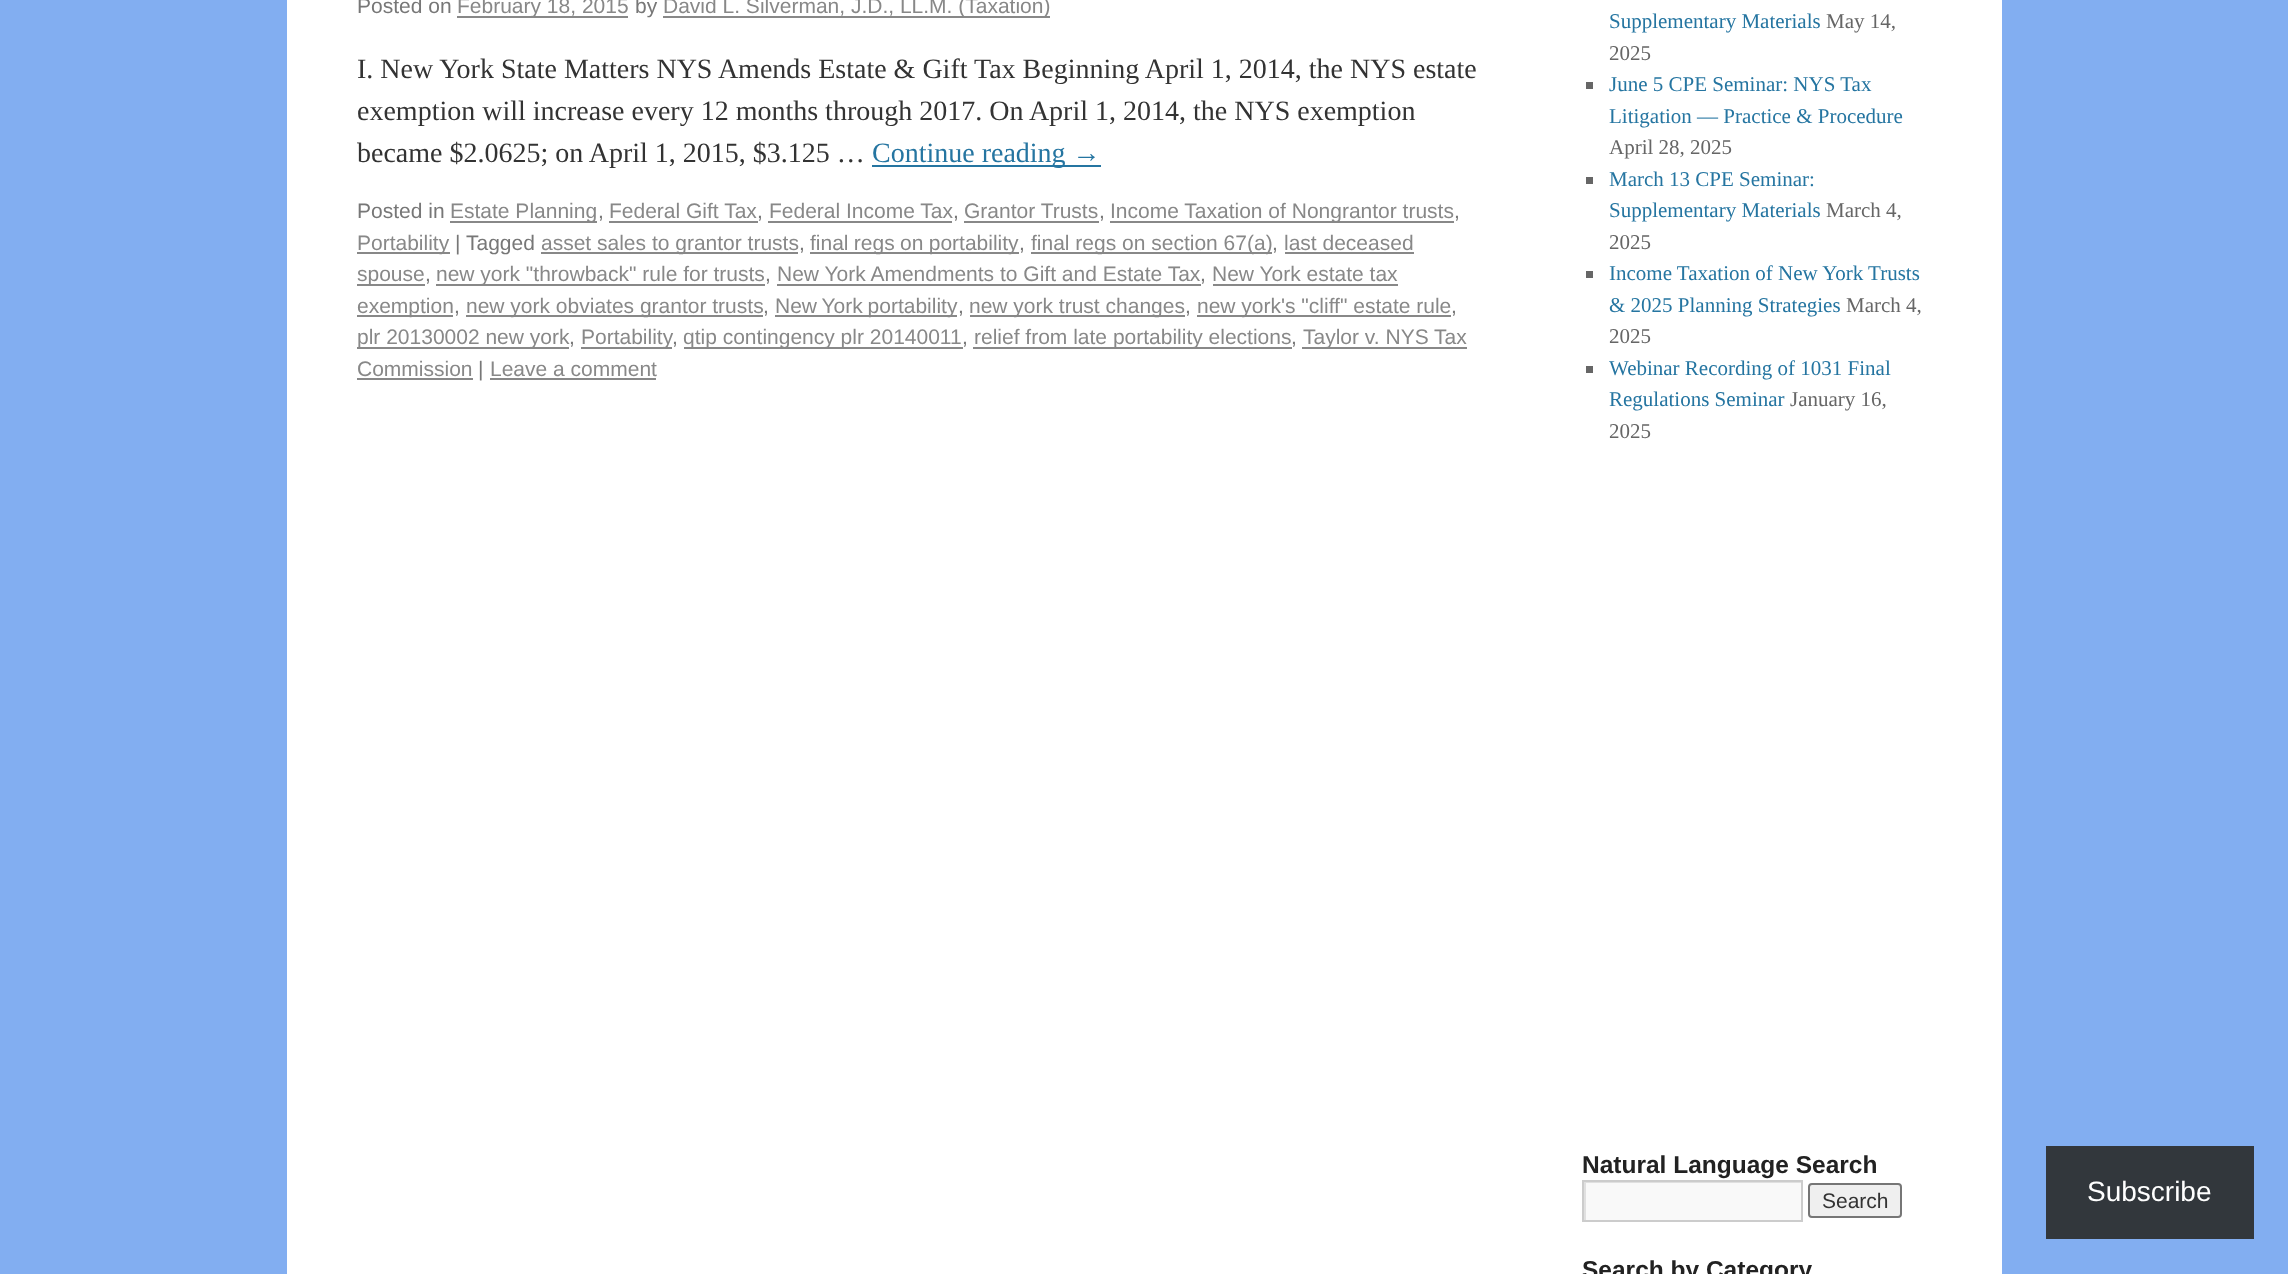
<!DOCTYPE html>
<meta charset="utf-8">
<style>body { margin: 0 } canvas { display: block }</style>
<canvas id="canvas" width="2288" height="1274"></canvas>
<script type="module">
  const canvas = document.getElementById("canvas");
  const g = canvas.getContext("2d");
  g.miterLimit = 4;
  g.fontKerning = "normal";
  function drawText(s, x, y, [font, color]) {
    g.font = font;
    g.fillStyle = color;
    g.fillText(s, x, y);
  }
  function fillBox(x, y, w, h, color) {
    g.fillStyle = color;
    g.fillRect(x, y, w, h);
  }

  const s1 = ["21px Liberation Sans", "#777777"];
  const s2 = ["21px Liberation Sans", "#888888"];
  const s3 = ["28px Liberation Serif", "#333333"];
  const s4 = ["28px Liberation Serif", "#2575A1"];
  const s5 = ["21px Liberation Serif", "#2575A1"];
  const s6 = ["21px Liberation Serif", "#666666"];
  const s7 = ["bold 24.5px Liberation Sans", "#222222"];
  const s8 = ["21px Liberation Sans", "#333333"];
  const s9 = ["28px Liberation Sans", "#FFFFFF"];

  fillBox(0, 0, 2288, 1274, "#82AEF1");
  fillBox(287, 0, 1715, 1274, "#FFFFFF");
  drawText("Posted on", 357, 13, s1);
  fillBox(457, 16, 171, 2, "#888888");
  drawText("February 18, 2015", 457, 13, s2);
  drawText("by", 635, 13, s1);
  fillBox(663, 16, 387, 2, "#888888");
  drawText("David L. Silverman, J.D., LL.M. (Taxation)", 663, 13, s2);
  drawText("I. New York State Matters NYS Amends Estate & Gift Tax Beginning April 1, 2014, the NYS estate", 357, 78, s3);
  drawText("exemption will increase every 12 months through 2017. On April 1, 2014, the NYS exemption", 357, 120, s3);
  drawText("became $2.0625; on April 1, 2015, $3.125 …", 357, 162, s3);
  fillBox(872, 165, 229, 2, "#2575A1");
  drawText("Continue reading →", 872, 162, s4);
  drawText("Posted in", 357, 218, s1);
  fillBox(450, 221, 147, 2, "#888888");
  drawText("Estate Planning", 450, 218, s2);
  drawText(",", 598, 218, s1);
  drawText("Federal Gift Tax", 609, 218, s2);
  drawText(",", 757, 218, s1);
  fillBox(609, 221, 149, 2, "#888888");
  drawText("Federal Income Tax", 769, 218, s2);
  drawText(",", 953, 218, s1);
  fillBox(768, 221, 184, 2, "#888888");
  drawText("Grantor Trusts", 964, 218, s2);
  drawText(",", 1099, 218, s1);
  fillBox(964, 221, 135, 2, "#888888");
  fillBox(1110, 221, 344, 2, "#888888");
  drawText("Income Taxation of Nongrantor trusts", 1110, 218, s2);
  drawText(",", 1454, 218, s1);
  fillBox(357, 252, 93, 2, "#888888");
  drawText("Portability", 357, 250, s2);
  drawText("|", 455, 250, s1);
  drawText("Tagged", 466, 250, s1);
  fillBox(541, 252, 257, 2, "#888888");
  drawText("asset sales to grantor trusts", 541, 250, s2);
  drawText(",", 799, 250, s1);
  fillBox(810, 252, 209, 2, "#888888");
  g.wordSpacing = "-0.5px";
  drawText("final regs on portability", 810, 250, s2);
  g.wordSpacing = "0px";
  drawText(",", 1019, 250, s1);
  fillBox(1031, 252, 241, 2, "#888888");
  drawText("final regs on section 67(a)", 1031, 250, s2);
  drawText(",", 1272, 250, s1);
  fillBox(1285, 252, 129, 2, "#888888");
  drawText("last deceased", 1284, 250, s2);
  fillBox(357, 284, 68, 2, "#888888");
  drawText("spouse", 357, 281, s2);
  drawText(",", 425, 281, s1);
  fillBox(436, 284, 329, 2, "#888888");
  drawText("new york \"throwback\" rule for trusts", 436, 281, s2);
  drawText(",", 765, 281, s1);
  drawText("New York Amendments to Gift and Estate Tax", 777, 281, s2);
  drawText(",", 1200, 281, s1);
  fillBox(777, 284, 424, 2, "#888888");
  fillBox(1213, 284, 185, 2, "#888888");
  drawText("New York estate tax", 1212, 281, s2);
  fillBox(357, 315, 96, 2, "#888888");
  drawText("exemption", 357, 313, s2);
  drawText(",", 454, 313, s1);
  fillBox(466, 315, 297, 2, "#888888");
  drawText("new york obviates grantor trusts", 466, 313, s2);
  drawText(",", 763, 313, s1);
  fillBox(775, 315, 182, 2, "#888888");
  g.wordSpacing = "-1px";
  drawText("New York portability", 775, 313, s2);
  g.wordSpacing = "0px";
  drawText(",", 958, 313, s1);
  fillBox(970, 315, 215, 2, "#888888");
  drawText("new york trust changes", 969, 313, s2);
  drawText(",", 1185, 313, s1);
  fillBox(1197, 315, 254, 2, "#888888");
  drawText("new york's \"cliff\" estate rule", 1197, 313, s2);
  drawText(",", 1451, 313, s1);
  fillBox(357, 347, 212, 2, "#888888");
  drawText("plr 20130002 new york", 357, 344, s2);
  drawText(",", 569, 344, s1);
  fillBox(581, 347, 91, 2, "#888888");
  drawText("Portability", 581, 344, s2);
  drawText(",", 672, 344, s1);
  fillBox(684, 347, 279, 2, "#888888");
  drawText("qtip contingency plr 20140011", 683, 344, s2);
  drawText(",", 962, 344, s1);
  fillBox(973, 347, 319, 2, "#888888");
  drawText("relief from late portability elections", 974, 344, s2);
  drawText(",", 1291, 344, s1);
  fillBox(1302, 347, 165, 2, "#888888");
  drawText("Taylor v. NYS Tax", 1303, 344, s2);
  drawText("Commission", 357, 376, s2);
  fillBox(357, 378, 116, 2, "#888888");
  drawText("|", 478, 376, s1);
  drawText("Leave a comment", 490, 376, s2);
  fillBox(490, 378, 166, 2, "#888888");
  drawText("Supplementary Materials", 1609, 28, s5);
  drawText("May 14,", 1826, 28, s6);
  drawText("2025", 1609, 60, s6);
  fillBox(1586, 82, 7, 7, "#666666");
  drawText("June 5 CPE Seminar: NYS Tax", 1609, 91, s5);
  drawText("Litigation — Practice & Procedure", 1609, 123, s5);
  drawText("April 28, 2025", 1609, 154, s6);
  fillBox(1586, 177, 7, 7, "#666666");
  drawText("March 13 CPE Seminar:", 1609, 186, s5);
  drawText("Supplementary Materials", 1609, 217, s5);
  drawText("March 4,", 1826, 217, s6);
  drawText("2025", 1609, 249, s6);
  fillBox(1586, 271, 7, 7, "#666666");
  drawText("Income Taxation of New York Trusts", 1609, 280, s5);
  drawText("& 2025 Planning Strategies", 1609, 312, s5);
  drawText("March 4,", 1846, 312, s6);
  drawText("2025", 1609, 343, s6);
  fillBox(1586, 366, 7, 7, "#666666");
  drawText("Webinar Recording of 1031 Final", 1609, 375, s5);
  drawText("Regulations Seminar", 1609, 406, s5);
  drawText("January 16,", 1790, 406, s6);
  drawText("2025", 1609, 438, s6);
  drawText("Natural Language Search", 1582, 1173, s7);
  fillBox(1586, 1183, 215, 37, "#F9F9F9");
  g.save();
  g.beginPath();
  g.rect(1584, 1181, 217, 39);
  g.clip();
  g.fillStyle = "#E0E0E0";
  g.beginPath();
  g.moveTo(1410, 1008);
  g.lineTo(1974, 1008);
  g.lineTo(1974, 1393);
  g.lineTo(1410, 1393);
  g.closePath();
  g.moveTo(1586, 1183);
  g.lineTo(1802, 1183);
  g.lineTo(1802, 1222);
  g.lineTo(1586, 1222);
  g.closePath();
  g.fill("evenodd");
  g.restore();
  g.strokeStyle = "#CCCCCC";
  g.lineWidth = 2;
  g.strokeRect(1583, 1181, 219, 40);
  g.fillStyle = "#EFEFEF";
  g.beginPath();
  g.roundRect(1809, 1184, 92, 33, 3);
  g.fill();
  g.strokeStyle = "#767676";
  g.stroke();
  drawText("Search", 1822, 1208, s8);
  drawText("Search by Category", 1582, 1278, s7);
  fillBox(2046, 1146, 208, 93, "#32373C");
  drawText("Subscribe", 2087, 1201, s9);
</script>
